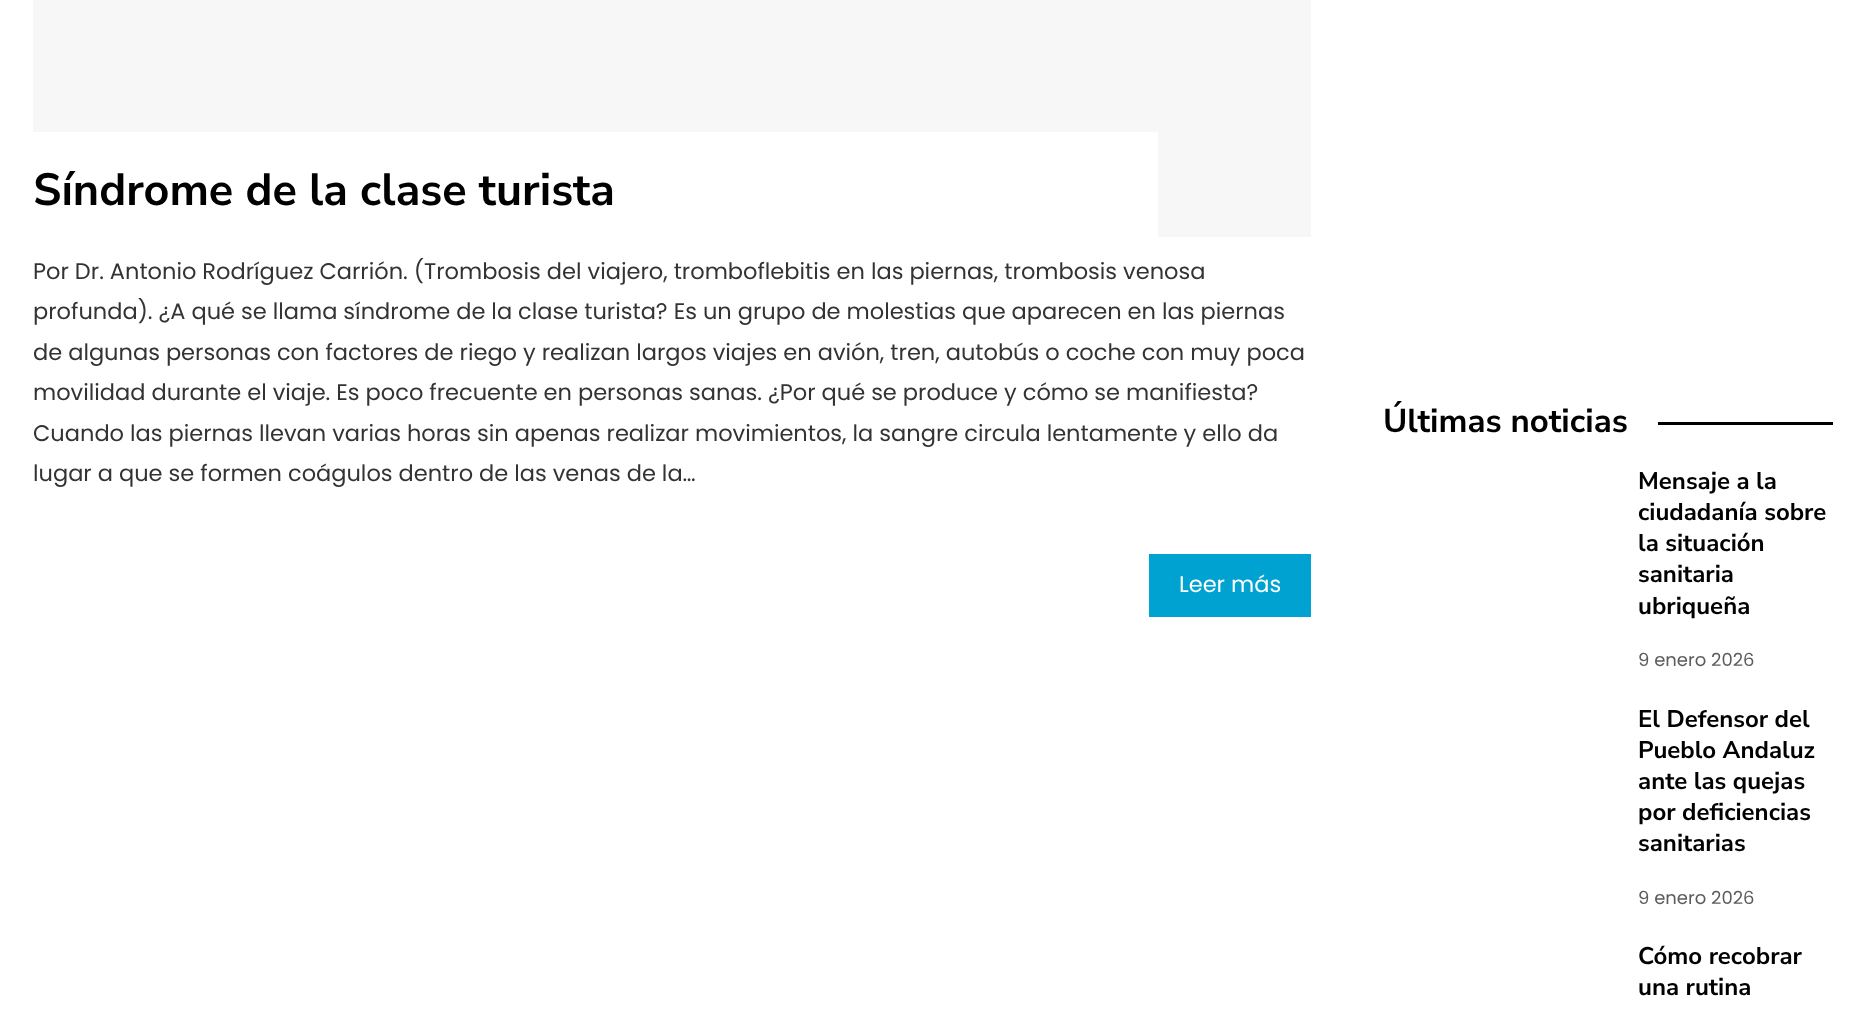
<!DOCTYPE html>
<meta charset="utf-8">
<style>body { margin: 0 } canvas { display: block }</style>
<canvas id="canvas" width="1866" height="1016"></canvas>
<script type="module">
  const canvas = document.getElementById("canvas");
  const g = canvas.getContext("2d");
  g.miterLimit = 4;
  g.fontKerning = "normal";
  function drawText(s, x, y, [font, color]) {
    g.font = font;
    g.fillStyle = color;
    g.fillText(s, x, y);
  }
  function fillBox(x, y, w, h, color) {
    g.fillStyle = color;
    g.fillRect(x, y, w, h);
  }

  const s1 = ["bold 45px Nunito Sans", "#000000"];
  const s2 = ["22.5px Poppins", "#333333"];
  const s3 = ["22.5px Poppins", "#FFFFFF"];
  const s4 = ["bold 33px Nunito Sans", "#000000"];
  const s5 = ["bold 24px Nunito Sans", "#000000"];
  const s6 = ["18px Poppins", "#5C5C5C"];

  fillBox(0, 0, 1866, 1016, "#FFFFFF");
  fillBox(33, 0, 1278, 237, "#F7F7F7");
  fillBox(33, 132, 1125, 105, "#FFFFFF");
  drawText("Síndrome de la clase turista", 33, 205, s1);
  drawText("Por Dr. Antonio Rodríguez Carrión. (Trombosis del viajero, tromboflebitis en las piernas, trombosis venosa", 33, 279, s2);
  drawText("profunda). ¿A qué se llama síndrome de la clase turista? Es un grupo de molestias que aparecen en las piernas", 33, 319, s2);
  drawText("de algunas personas con factores de riego y realizan largos viajes en avión, tren, autobús o coche con muy poca", 33, 360, s2);
  drawText("movilidad durante el viaje. Es poco frecuente en personas sanas. ¿Por qué se produce y cómo se manifiesta?", 33, 400, s2);
  drawText("Cuando las piernas llevan varias horas sin apenas realizar movimientos, la sangre circula lentamente y ello da", 33, 441, s2);
  drawText("lugar a que se formen coágulos dentro de las venas de la…", 33, 481, s2);
  fillBox(1149, 554, 162, 63, "#00A2D2");
  drawText("Leer más", 1179, 592, s3);
  drawText("Últimas noticias", 1383, 432, s4);
  fillBox(1658, 422, 175, 3, "#000000");
  drawText("Mensaje a la", 1638, 489, s5);
  drawText("ciudadanía sobre", 1638, 520, s5);
  drawText("la situación", 1638, 551, s5);
  drawText("sanitaria", 1638, 582, s5);
  drawText("ubriqueña", 1638, 614, s5);
  drawText("9 enero 2026", 1638, 666, s6);
  drawText("El Defensor del", 1638, 727, s5);
  drawText("Pueblo Andaluz", 1638, 758, s5);
  drawText("ante las quejas", 1638, 789, s5);
  drawText("por deficiencias", 1638, 820, s5);
  drawText("sanitarias", 1638, 851, s5);
  drawText("9 enero 2026", 1638, 904, s6);
  drawText("Cómo recobrar", 1638, 964, s5);
  drawText("una rutina", 1638, 995, s5);
</script>
